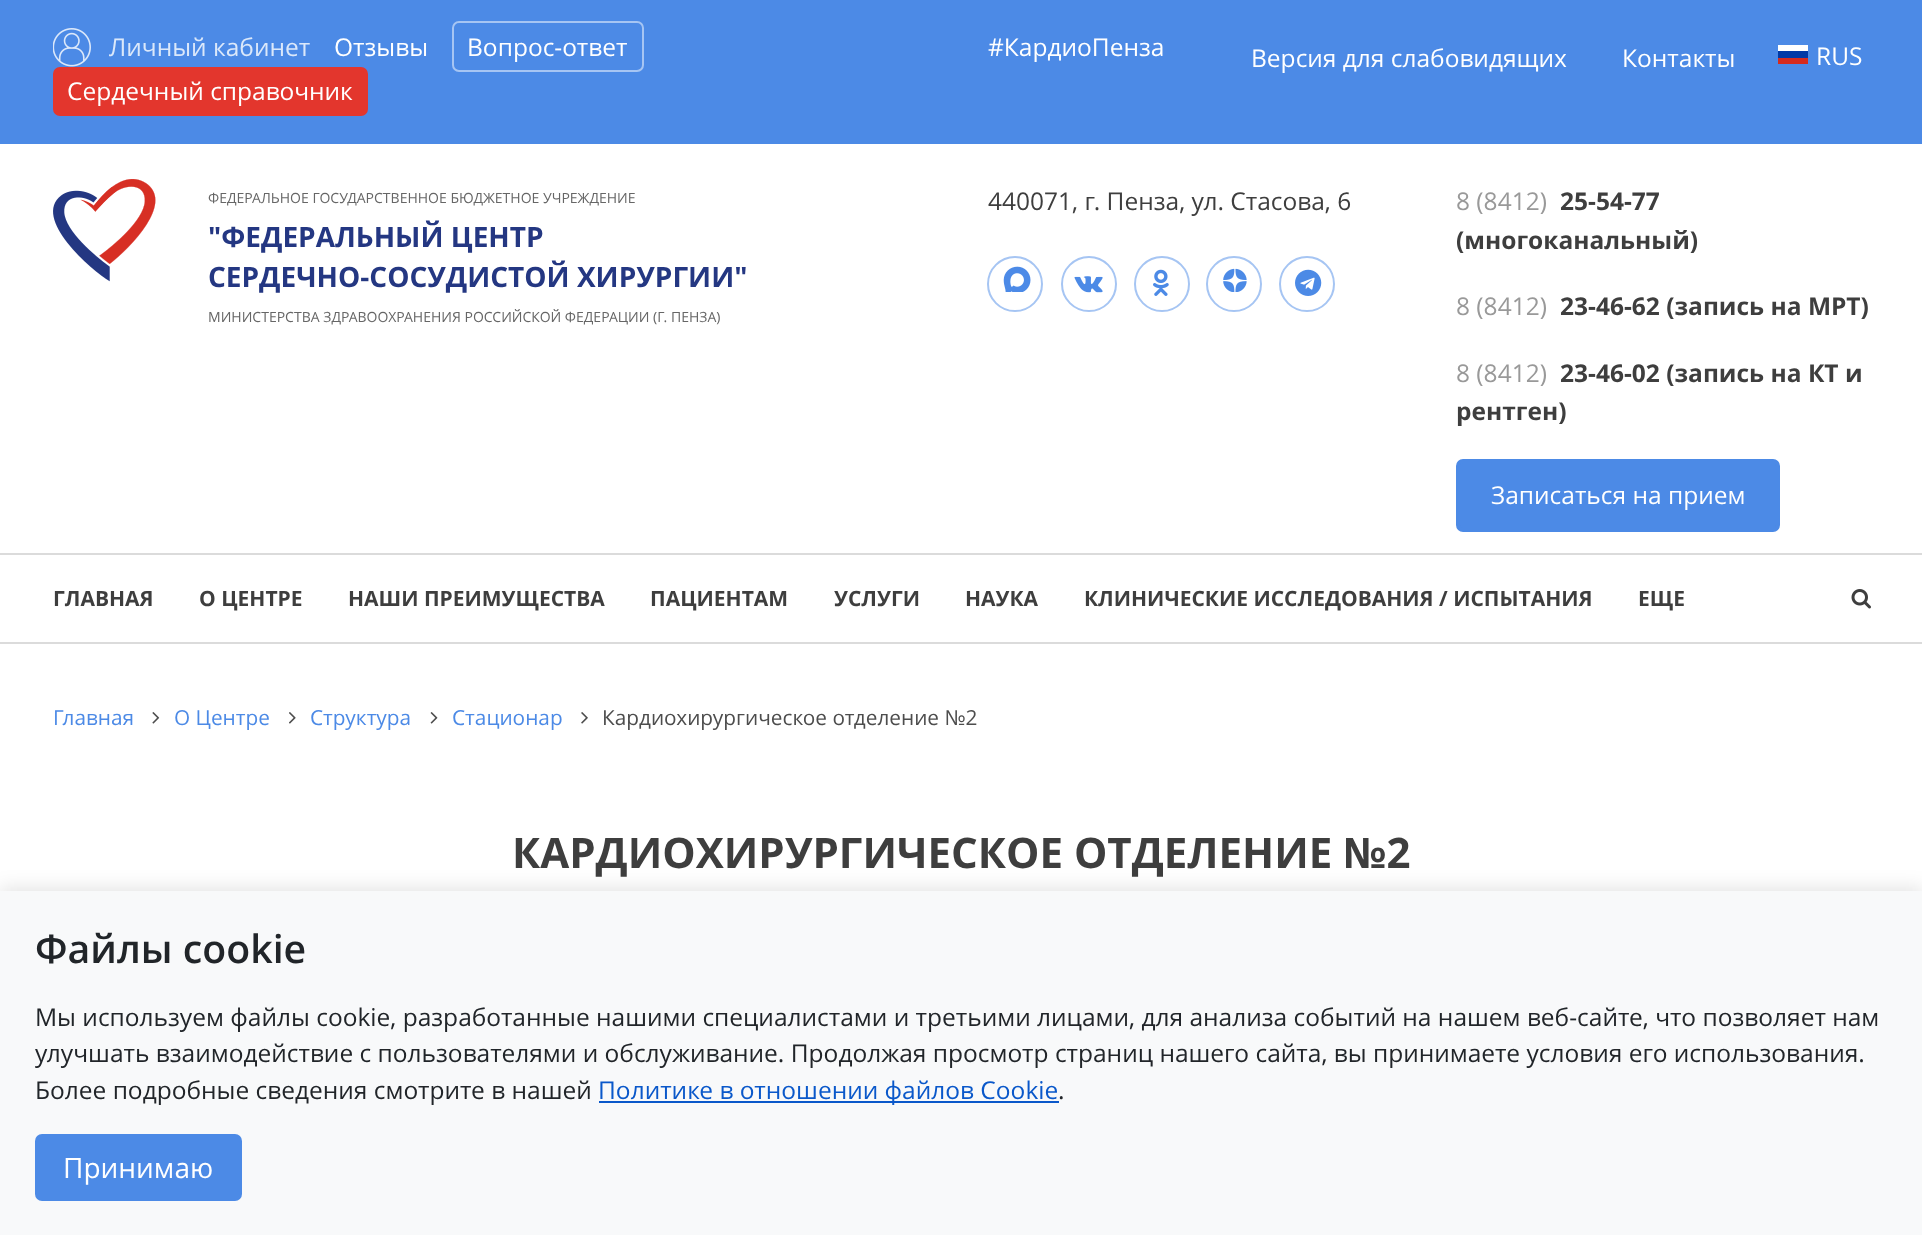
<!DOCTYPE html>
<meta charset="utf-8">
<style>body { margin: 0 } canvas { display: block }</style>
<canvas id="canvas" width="1922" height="1235"></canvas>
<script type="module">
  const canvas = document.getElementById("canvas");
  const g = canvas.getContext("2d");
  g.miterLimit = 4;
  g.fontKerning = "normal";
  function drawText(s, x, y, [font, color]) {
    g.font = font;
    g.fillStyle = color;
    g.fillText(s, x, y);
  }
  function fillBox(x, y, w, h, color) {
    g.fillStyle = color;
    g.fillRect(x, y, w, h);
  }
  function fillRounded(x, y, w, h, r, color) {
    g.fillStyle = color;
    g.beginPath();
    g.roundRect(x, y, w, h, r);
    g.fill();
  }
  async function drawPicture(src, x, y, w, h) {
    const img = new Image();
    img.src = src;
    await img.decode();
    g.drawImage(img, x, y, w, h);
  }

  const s1 = ["24.5px Open Sans", "#DBE8FA"];
  const s2 = ["24.5px Open Sans", "#FFFFFF"];
  const s3 = ["14px Open Sans", "#666666"];
  const s4 = ["bold 28px Open Sans", "#243782"];
  const s5 = ["24.5px Open Sans", "#3E3E3E"];
  const s6 = ["24.5px Open Sans", "#999999"];
  const s7 = ["bold 24.5px Open Sans", "#3E3E3E"];
  const s8 = ["bold 21px Open Sans", "#3E3E3E"];
  const s9 = ["20.8px Open Sans", "#4C8AE6"];
  const s10 = ["20.8px Open Sans", "#4D4D4D"];
  const s11 = ["bold 42px Open Sans", "#3E3E3E"];
  const s12 = ["600 39.25px Open Sans", "#212529"];
  const s13 = ["24.5px Open Sans", "#212529"];
  const s14 = ["24.5px Open Sans", "#0A58CA"];
  const s15 = ["28px Open Sans", "#FFFFFF"];

  fillBox(0, 0, 1922, 1235, "#FFFFFF");
  fillBox(0, 0, 1922, 144, "#4C8AE6");
  await drawPicture("pic1.png", 53, 28, 38, 39);
  drawText("Личный кабинет", 109, 56, s1);
  drawText("Отзывы", 334, 56, s2);
  g.beginPath();
  g.roundRect(453, 22, 190, 49, 6);
  g.strokeStyle = "#A6C5F3";
  g.lineWidth = 2;
  g.stroke();
  drawText("Вопрос-ответ", 467, 56, s2);
  g.fillStyle = "#E3362D";
  g.beginPath();
  g.roundRect(55, 69, 311, 45, 5);
  g.fill();
  g.strokeStyle = "#E3362D";
  g.lineWidth = 4;
  g.stroke();
  drawText("Сердечный справочник", 67, 100, s2);
  drawText("#КардиоПенза", 988, 56, s2);
  drawText("Версия для слабовидящих", 1251, 67, s2);
  drawText("Контакты", 1622, 67, s2);
  fillBox(1778, 45, 30, 6, "#FFFFFF");
  drawText("RUS", 1816, 65, s2);
  fillBox(1778, 51, 30, 7, "#0039A6");
  fillBox(1778, 58, 30, 6, "#D52B1E");
  await drawPicture("pic2.png", 53, 179, 103, 103);
  drawText("ФЕДЕРАЛЬНОЕ ГОСУДАРСТВЕННОЕ БЮДЖЕТНОЕ УЧРЕЖДЕНИЕ", 208, 203, s3);
  drawText("\"ФЕДЕРАЛЬНЫЙ ЦЕНТР", 208, 247, s4);
  drawText("СЕРДЕЧНО-СОСУДИСТОЙ ХИРУРГИИ\"", 208, 287, s4);
  drawText("МИНИСТЕРСТВА ЗДРАВООХРАНЕНИЯ РОССИЙСКОЙ ФЕДЕРАЦИИ (Г. ПЕНЗА)", 208, 322, s3);
  drawText("440071, г. Пенза, ул. Стасова, 6", 988, 210, s5);
  g.beginPath();
  g.arc(1015, 284, 27, 0, Math.PI * 2);
  g.strokeStyle = "#A6C5F3";
  g.lineWidth = 2;
  g.stroke();
  await drawPicture("pic3.png", 1003, 266, 28, 26);
  g.beginPath();
  g.arc(1089, 284, 27, 0, Math.PI * 2);
  g.stroke();
  await drawPicture("pic4.png", 1074, 276, 29, 17);
  g.beginPath();
  g.arc(1162, 284, 27, 0, Math.PI * 2);
  g.stroke();
  await drawPicture("pic5.png", 1153, 269, 16, 27);
  g.beginPath();
  g.arc(1234, 284, 27, 0, Math.PI * 2);
  g.stroke();
  await drawPicture("pic6.png", 1223, 268, 24, 24);
  g.beginPath();
  g.arc(1307, 284, 27, 0, Math.PI * 2);
  g.stroke();
  await drawPicture("pic7.png", 1295, 269, 27, 27);
  drawText("8 (8412)", 1456, 210, s6);
  drawText("25-54-77", 1560, 210, s7);
  drawText("(многоканальный)", 1456, 249, s7);
  drawText("8 (8412)", 1456, 315, s6);
  drawText("23-46-62 (запись на МРТ)", 1560, 315, s7);
  drawText("8 (8412)", 1456, 382, s6);
  drawText("23-46-02 (запись на КТ и", 1560, 382, s7);
  drawText("рентген)", 1456, 420, s7);
  g.fillStyle = "#4C8AE6";
  g.beginPath();
  g.roundRect(1458, 461, 320, 69, 5);
  g.fill();
  g.strokeStyle = "#4C8AE6";
  g.lineWidth = 4;
  g.stroke();
  drawText("Записаться на прием", 1491, 504, s2);
  fillBox(0, 553, 1922, 2, "#DBDBDB");
  fillBox(0, 642, 1922, 2, "#DBDBDB");
  drawText("ГЛАВНАЯ", 53, 606, s8);
  drawText("О ЦЕНТРЕ", 199, 606, s8);
  drawText("НАШИ ПРЕИМУЩЕСТВА", 348, 606, s8);
  drawText("ПАЦИЕНТАМ", 650, 606, s8);
  drawText("УСЛУГИ", 834, 606, s8);
  drawText("НАУКА", 965, 606, s8);
  drawText("КЛИНИЧЕСКИЕ ИССЛЕДОВАНИЯ / ИСПЫТАНИЯ", 1084, 606, s8);
  drawText("ЕЩЕ", 1638, 606, s8);
  await drawPicture("pic8.png", 1851, 589, 20, 20);
  drawText("Главная", 53, 725, s9);
  await drawPicture("pic9.png", 152, 712, 8, 12);
  drawText("О Центре", 174, 725, s9);
  await drawPicture("pic10.png", 289, 712, 7, 12);
  drawText("Структура", 310, 725, s9);
  await drawPicture("pic11.png", 430, 712, 8, 12);
  drawText("Стационар", 452, 725, s9);
  await drawPicture("pic12.png", 581, 712, 7, 12);
  drawText("Кардиохирургическое отделение №2", 602, 725, s10);
  drawText("КАРДИОХИРУРГИЧЕСКОЕ ОТДЕЛЕНИЕ №2", 512, 868, s11);
  g.fillStyle = "rgba(0, 0, 0, 0.1)";
  g.filter = "blur(9px)";
  g.beginPath();
  g.rect(0, 887, 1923, 345);
  g.fill();
  g.filter = "none";
  fillBox(0, 891, 1922, 344, "#F8F9FA");
  drawText("Файлы cookie", 35, 963, s12);
  drawText("Мы используем файлы cookie, разработанные нашими специалистами и третьими лицами, для анализа событий на нашем веб-сайте, что позволяет нам", 35, 1026, s13);
  drawText("улучшать взаимодействие с пользователями и обслуживание. Продолжая просмотр страниц нашего сайта, вы принимаете условия его использования.", 35, 1062, s13);
  drawText("Более подробные сведения смотрите в нашей", 35, 1099, s13);
  fillBox(599, 1101, 460, 2, "#0A58CA");
  drawText("Политике в отношении файлов Cookie", 598, 1099, s14);
  drawText(".", 1058, 1099, s13);
  fillRounded(35, 1134, 207, 67, 7, "#4C8AE6");
  drawText("Принимаю", 63, 1178, s15);
</script>
